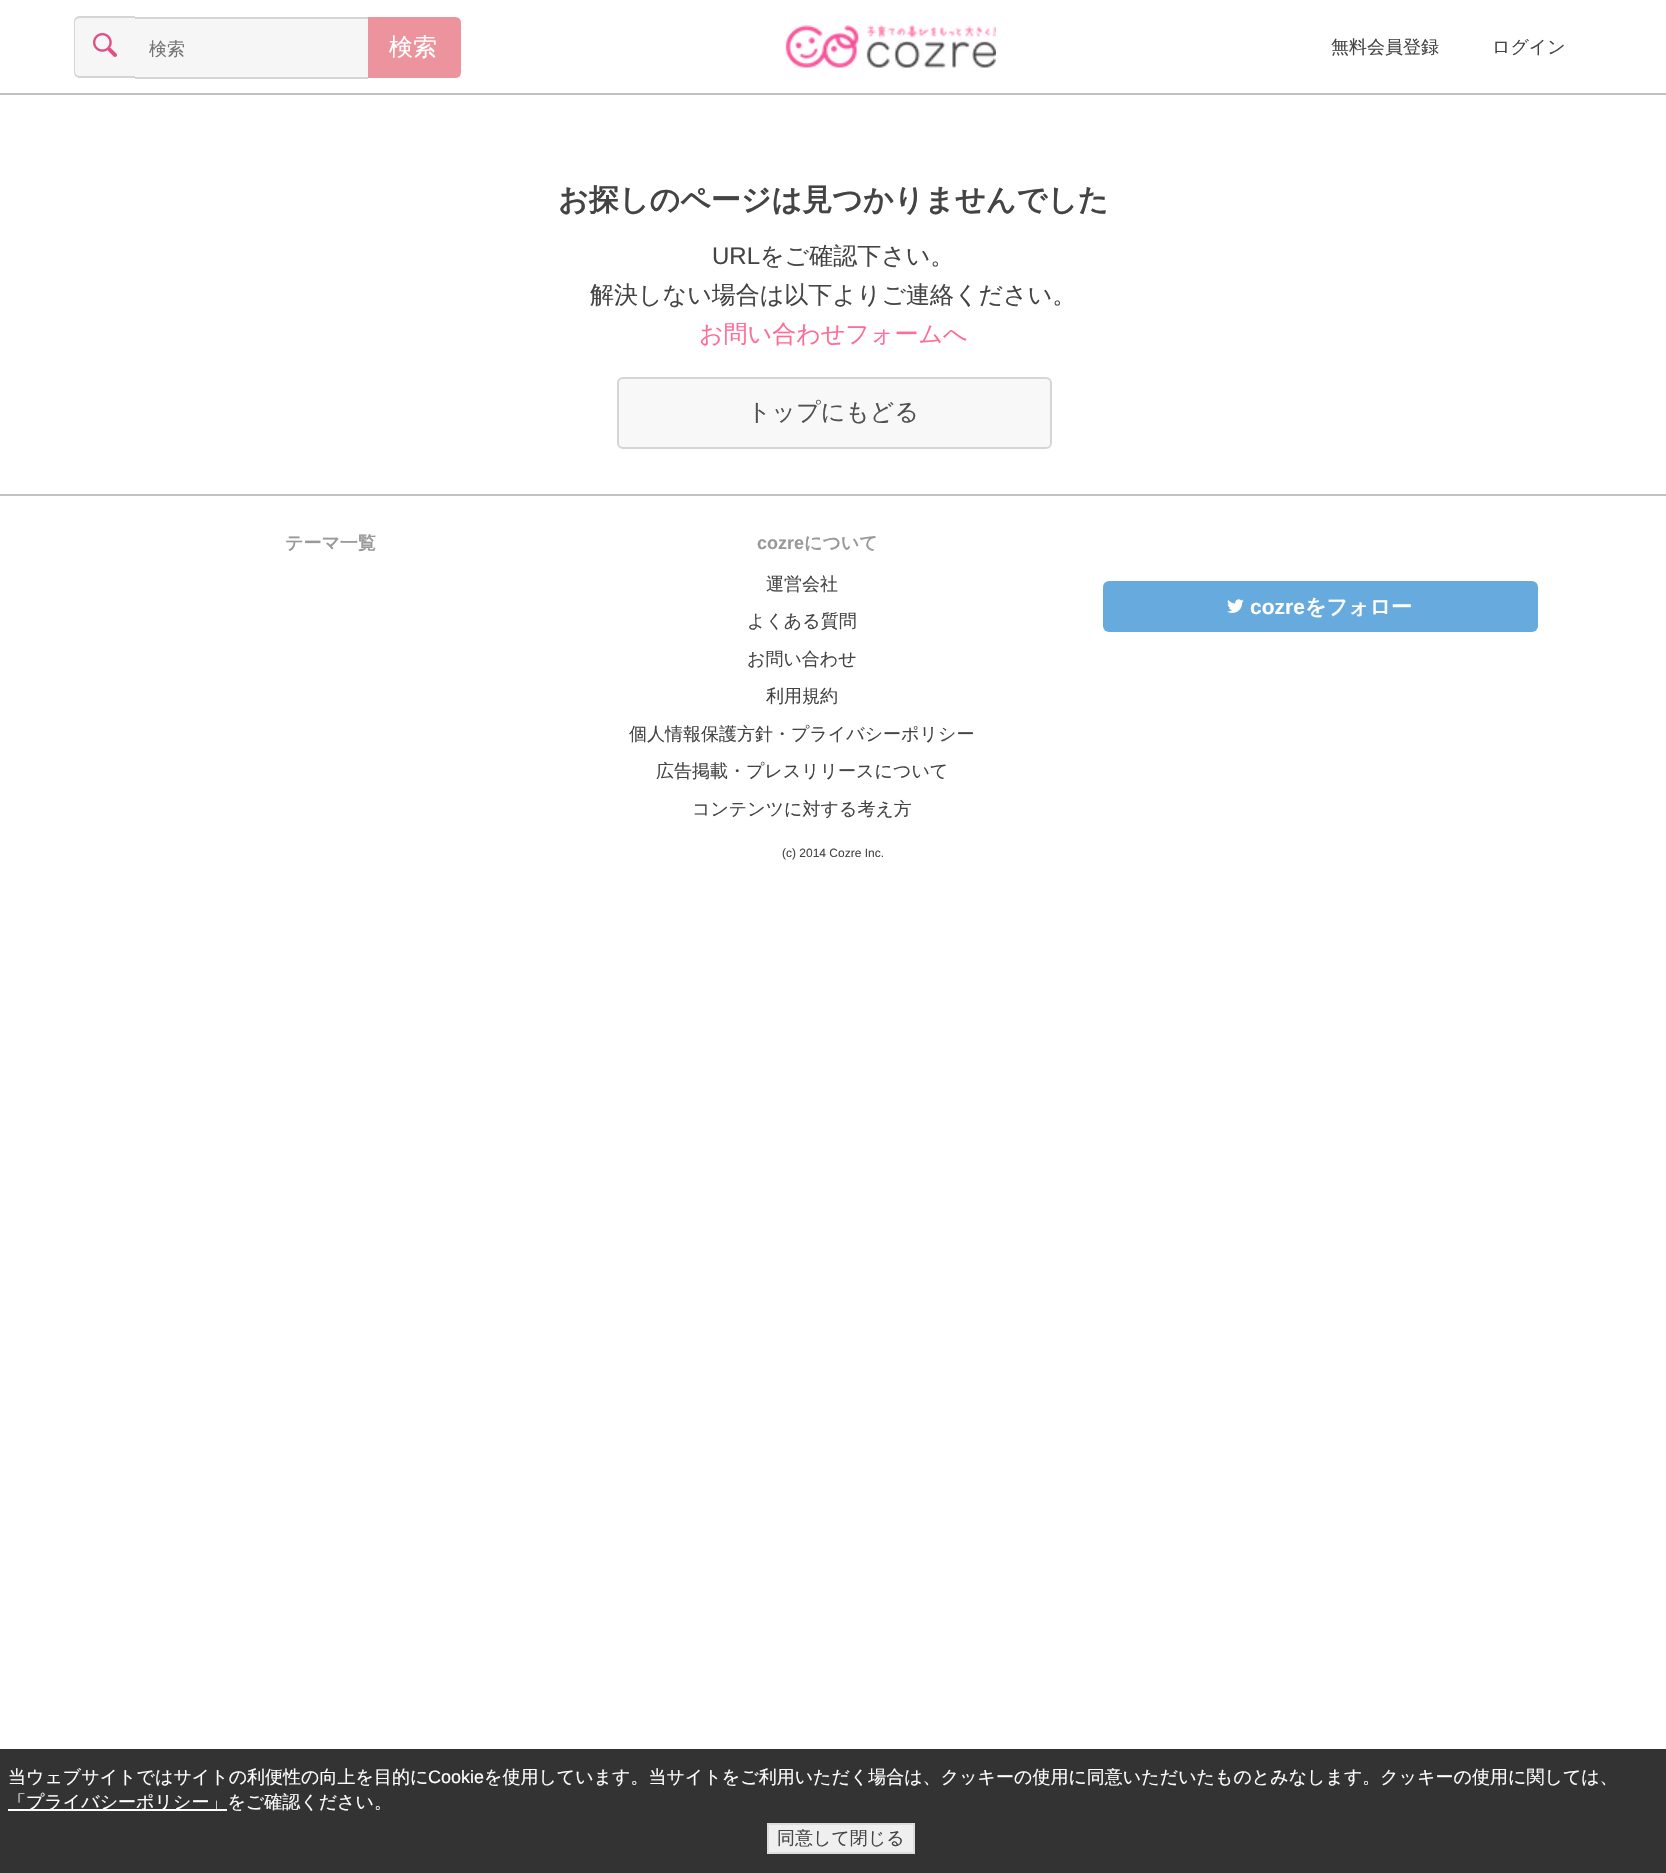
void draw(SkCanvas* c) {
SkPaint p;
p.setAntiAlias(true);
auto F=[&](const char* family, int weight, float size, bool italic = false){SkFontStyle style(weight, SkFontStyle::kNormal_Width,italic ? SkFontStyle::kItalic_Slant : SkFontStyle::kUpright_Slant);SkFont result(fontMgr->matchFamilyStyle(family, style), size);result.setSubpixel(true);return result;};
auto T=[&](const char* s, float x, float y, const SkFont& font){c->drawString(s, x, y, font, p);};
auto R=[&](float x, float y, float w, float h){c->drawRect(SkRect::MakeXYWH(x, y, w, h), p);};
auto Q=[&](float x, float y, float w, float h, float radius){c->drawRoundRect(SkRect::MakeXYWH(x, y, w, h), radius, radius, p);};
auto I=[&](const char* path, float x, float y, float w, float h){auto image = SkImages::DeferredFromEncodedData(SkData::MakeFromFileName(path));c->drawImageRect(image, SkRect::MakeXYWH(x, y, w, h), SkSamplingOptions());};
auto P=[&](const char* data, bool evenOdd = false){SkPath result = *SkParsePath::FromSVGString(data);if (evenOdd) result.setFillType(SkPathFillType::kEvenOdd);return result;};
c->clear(0xffffffff);
p.setColor(0xfff6f6f6);
c->drawPath(P("M80 17h55v61h-55c-3.5 0-6-2.5-6-6v-49c0-3.5 2.5-6 6-6z"),p);
p.setColor(0xffd5d5d5);
c->drawPath(P("M80 16h55v62h-55c-4 0-6-3-6-6v-50c0-3 2-6 6-6zm0 2h55v58h-55c-3 0-5-2-5-4v-50c0-2 2-4 5-4z",true),p);
I("1.png",93,33,24,24);
p.setColor(0xfff6f6f6);
R(135,19,233,58);
p.setColor(0xffd5d5d5);
R(135,17,233,2);
R(135,77,233,2);
auto f1 = F("WenQuanYi Zen Hei",500,18);
p.setColor(0xff757575);
T("検索",149,55,f1);
p.setColor(0xffec939e);
c->drawPath(P("M369 18h86c3 0 5 2 5 5v49c0 3-2 5-5 5h-86z"),p);
p.setStroke(true);
p.setStrokeWidth(2);
c->drawPath(P("M369 18h86c3 0 5 2 5 5v49c0 3-2 5-5 5h-86z"),p);
auto f2 = F("WenQuanYi Zen Hei",500,24);
p.setStroke(false);
p.setColor(0xffffffff);
T("検索",389,55,f2);
I("2.png",785,25,211,43);
p.setColor(0xff444444);
T("無料会員登録",1331,53,f1);
T("ログイン",1492,53,f1);
p.setColor(0xffc1c1c1);
R(0,93,1666,2);
R(0,494,1666,2);
auto f3 = F("WenQuanYi Zen Hei",700,30);
p.setColor(0xff444444);
T("お探しのページは見つかりませんでした",558,210,f3);
auto f4 = F("Liberation Sans",400,24);
T("URL",712,264,f4);
T("をご確認下さい。",760,264,f2);
T("解決しない場合は以下よりご連絡ください。",590,303,f2);
p.setColor(0xffff6c97);
T("お問い合わせフォームへ",699,342,f2);
p.setColor(0xfff8f8f8);
c->drawRoundRect(SkRect::MakeXYWH(618,378,433,70),5,5,p);
p.setStroke(true);
p.setColor(0xffd6d5d6);
c->drawRoundRect(SkRect::MakeXYWH(618,378,433,70),5,5,p);
p.setStroke(false);
p.setColor(0xff525151);
T("トップにもどる",747,420,f2);
auto f5 = F("WenQuanYi Zen Hei",700,18);
p.setColor(0xff999999);
T("テーマ一覧",285,549,f5);
auto f6 = F("Liberation Sans",700,18);
T("cozre",757,549,f6);
T("について",804,549,f5);
p.setColor(0xff444444);
T("運営会社",766,590,f1);
T("よくある質問",747,627,f1);
T("お問い合わせ",747,665,f1);
T("利用規約",766,702,f1);
T("個人情報保護方針・プライバシーポリシー",629,740,f1);
T("広告掲載・プレスリリースについて",656,777,f1);
T("コンテンツに対する考え方",692,815,f1);
p.setColor(0xff67aadd);
Q(1103,581,435,51,6);
I("3.png",1227,599,17,14);
auto f7 = F("Liberation Sans",700,21);
p.setColor(0xffffffff);
T("cozre",1250,614,f7);
auto f8 = F("WenQuanYi Zen Hei",700,21);
T("をフォロー",1305,614,f8);
auto f9 = F("Liberation Sans",400,12);
p.setColor(0xff444444);
T("(c) 2014 Cozre Inc.",782,857,f9);
p.setColor(0xff333333);
R(0,1749,1666,124);
p.setColor(0xffffffff);
T("当ウェブサイトではサイトの利便性の向上を目的に",8,1783,f1);
auto f10 = F("Liberation Sans",400,18);
T("Cookie",428,1783,f10);
T("を使用しています。当サイトをご利用いただく場合は、クッキーの使用に同意いただいたものとみなします。クッキーの使用に関しては、",484,1783,f1);
p.setColor(0xfffefefe);
R(8,1809,219,2);
p.setColor(0xffffffff);
T("「プライバシーポリシー」をご確認ください。",8,1808,f1);
p.setColor(0xffefefef);
c->drawRect(SkRect::MakeXYWH(768,1824,146,29),p);
p.setStroke(true);
p.setColor(0xffdddddd);
c->drawRect(SkRect::MakeXYWH(768,1824,146,29),p);
p.setStroke(false);
p.setColor(0xff444444);
T("同意して閉じる",777,1844,f1);
}
